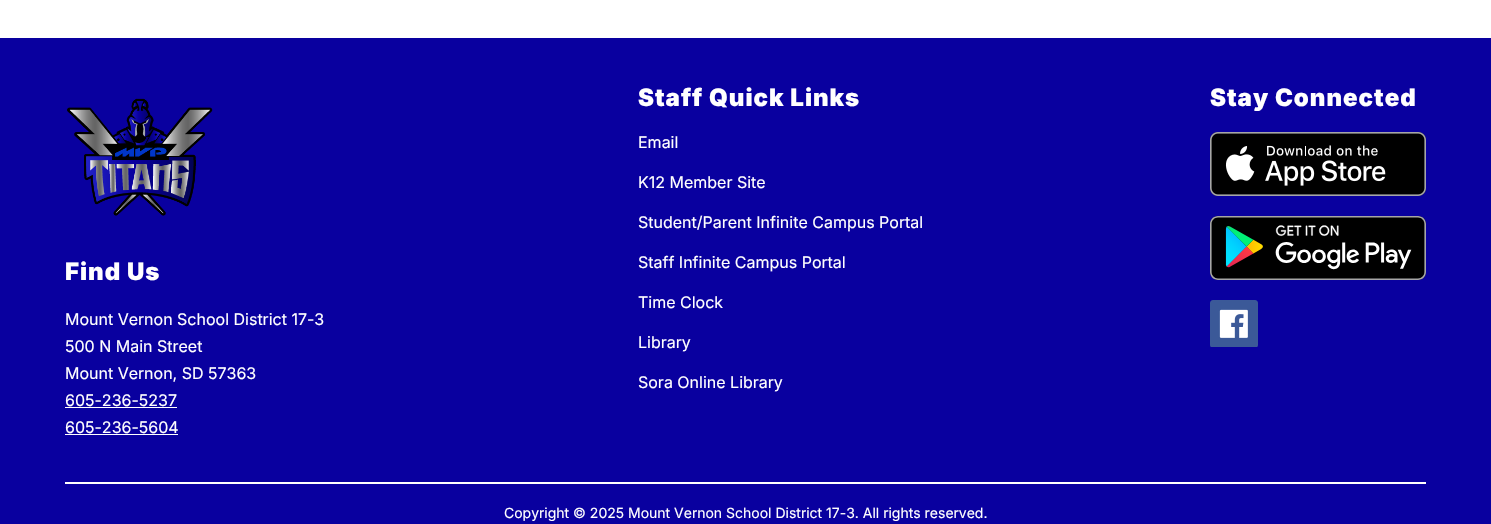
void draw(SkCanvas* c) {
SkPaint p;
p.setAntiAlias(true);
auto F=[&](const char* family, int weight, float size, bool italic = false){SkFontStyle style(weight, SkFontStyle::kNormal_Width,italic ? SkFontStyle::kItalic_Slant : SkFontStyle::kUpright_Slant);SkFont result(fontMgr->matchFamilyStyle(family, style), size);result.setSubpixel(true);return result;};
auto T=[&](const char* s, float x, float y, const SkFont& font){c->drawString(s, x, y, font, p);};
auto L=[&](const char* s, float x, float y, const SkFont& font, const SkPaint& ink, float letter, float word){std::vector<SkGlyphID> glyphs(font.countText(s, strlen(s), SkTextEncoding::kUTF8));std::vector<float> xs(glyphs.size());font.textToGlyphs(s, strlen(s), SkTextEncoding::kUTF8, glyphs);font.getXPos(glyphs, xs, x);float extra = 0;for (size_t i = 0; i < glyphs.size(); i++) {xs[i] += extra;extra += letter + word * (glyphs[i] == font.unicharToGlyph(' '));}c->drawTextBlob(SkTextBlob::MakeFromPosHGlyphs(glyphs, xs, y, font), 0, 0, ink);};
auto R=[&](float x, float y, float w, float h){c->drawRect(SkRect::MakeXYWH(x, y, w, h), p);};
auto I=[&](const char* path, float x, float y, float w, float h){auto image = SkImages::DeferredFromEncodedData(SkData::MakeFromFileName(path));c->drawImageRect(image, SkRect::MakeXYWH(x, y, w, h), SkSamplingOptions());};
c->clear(0xffffffff);
p.setColor(0xff09009f);
R(0,38,1491,486);
auto f1 = F("Inter",900,24);
p.setColor(0xffffffff);
L("Staff Quick Links",638,106,f1,p,1,0);
auto f2 = F("Inter",400,16);
T("Email",638,148,f2);
T("K12 Member Site",638,188,f2);
T("Student/Parent Infinite Campus Portal",638,228,f2);
T("Staff Infinite Campus Portal",638,268,f2);
T("Time Clock",638,308,f2);
T("Library",638,348,f2);
T("Sora Online Library",638,388,f2);
L("Stay Connected",1210,106,f1,p,1,0);
I("1.png",1210,132,216,64);
I("2.png",1210,216,216,64);
I("3.png",1210,300,48,47);
I("4.png",67,98,146,118);
L("Find Us",65,280,f1,p,1,0);
T("Mount Vernon School District 17-3",65,325,f2);
T("500 N Main Street",65,352,f2);
T("Mount Vernon, SD 57363",65,379,f2);
T("605-236-5237",65,406,f2);
R(65,407,112,1);
T("605-236-5604",65,433,f2);
R(65,434,113,1);
R(65,482,1361,2);
auto f3 = F("Inter",400,14);
T("Copyright © 2025 Mount Vernon School District 17-3. All rights reserved.",504,518,f3);
}
